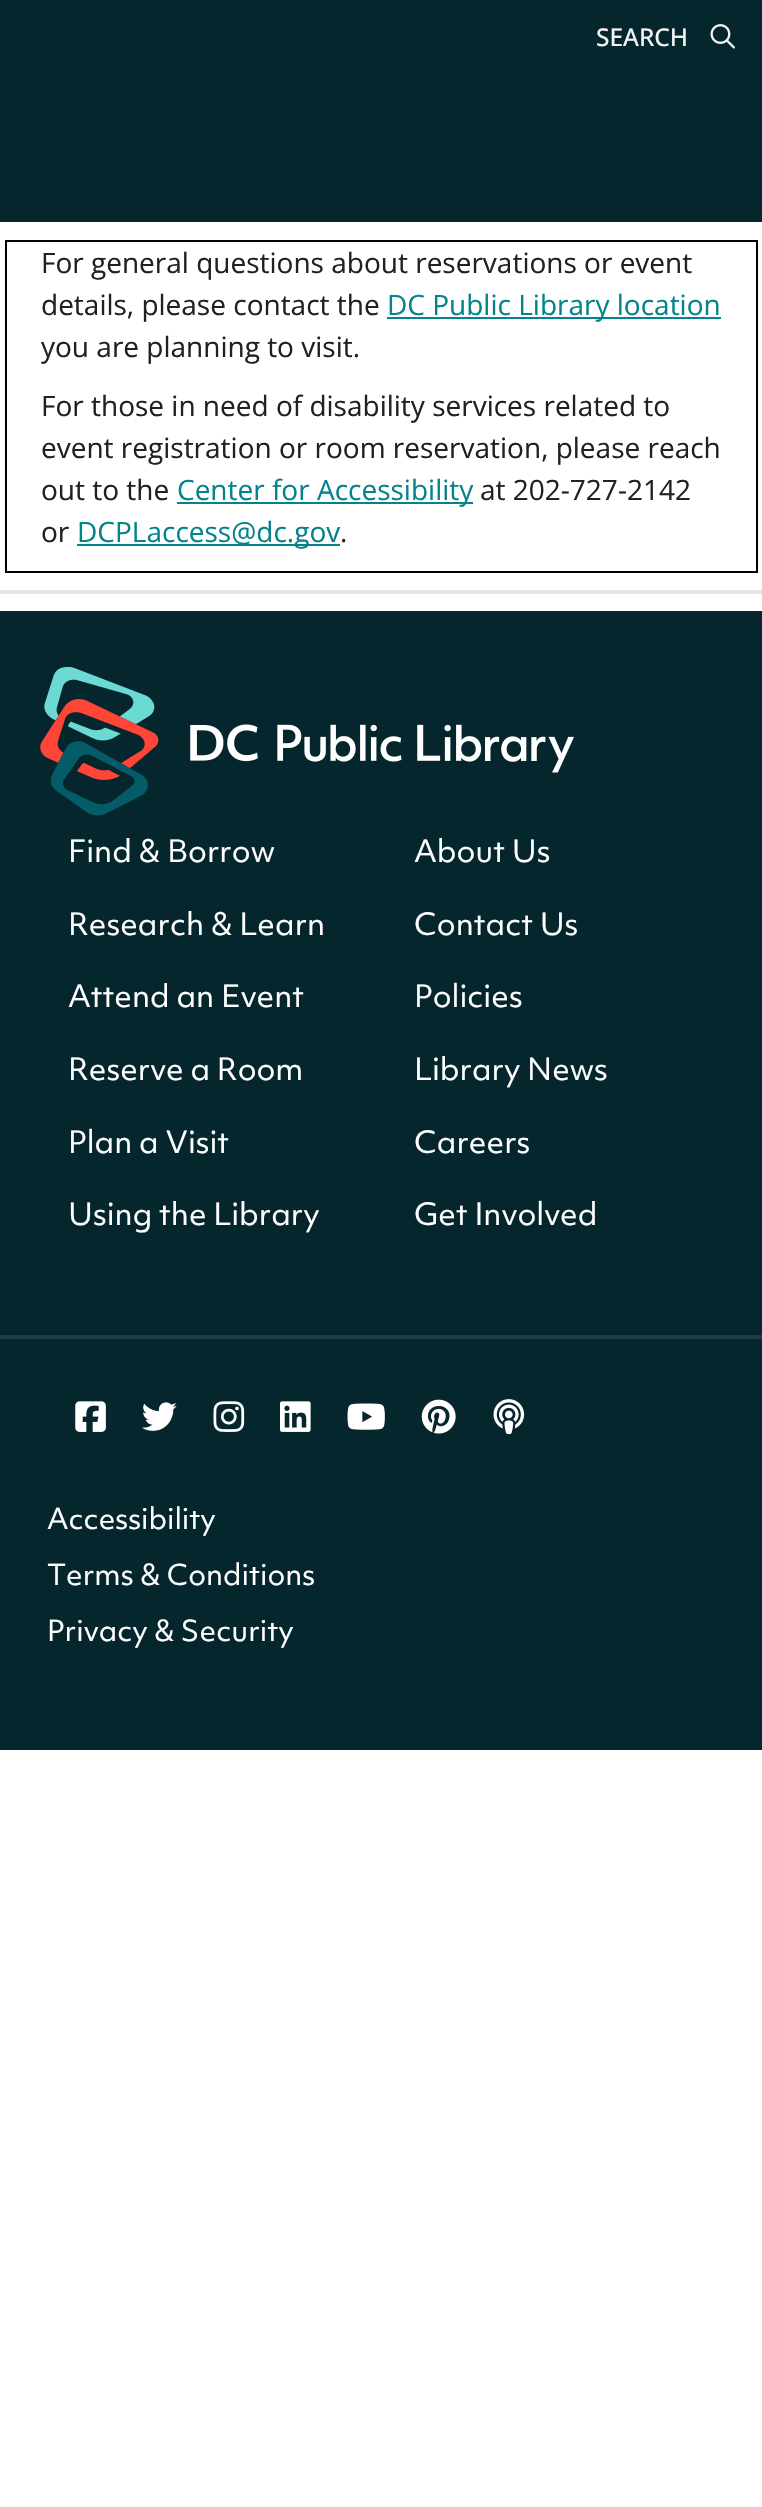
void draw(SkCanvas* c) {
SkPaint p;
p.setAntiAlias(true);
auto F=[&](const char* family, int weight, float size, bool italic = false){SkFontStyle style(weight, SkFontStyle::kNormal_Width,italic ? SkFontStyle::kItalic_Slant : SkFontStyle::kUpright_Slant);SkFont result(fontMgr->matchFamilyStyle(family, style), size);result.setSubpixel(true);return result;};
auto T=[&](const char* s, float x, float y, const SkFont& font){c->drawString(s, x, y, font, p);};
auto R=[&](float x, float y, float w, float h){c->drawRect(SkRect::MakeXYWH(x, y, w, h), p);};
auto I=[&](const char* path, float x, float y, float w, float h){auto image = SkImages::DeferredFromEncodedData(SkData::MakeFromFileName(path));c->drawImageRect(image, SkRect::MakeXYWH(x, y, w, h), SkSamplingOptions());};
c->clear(0xffffffff);
p.setColor(0xffe1e5e5);
R(0,590,762,4);
p.setColor(0xff06262d);
R(0,0,762,222);
auto f1 = F("Open Sans",500,24.5);
p.setColor(0xfff2f4f4);
T("SEARCH",596,46,f1);
I("1.png",710,24,25,25);
p.setColor(0xff000000);
R(5,240,753,2);
R(756,240,2,332);
R(5,571,753,2);
R(5,240,2,332);
auto f2 = F("Open Sans",400,28);
p.setColor(0xff212121);
T("For general questions about reservations or event",41,273,f2);
T("details, please contact the",41,315,f2);
p.setColor(0xff03838a);
R(387,317,334,2);
T("DC Public Library location",387,315,f2);
p.setColor(0xff212121);
T("you are planning to visit.",41,357,f2);
T("For those in need of disability services related to",41,416,f2);
T("event registration or room reservation, please reach",41,458,f2);
T("out to the",41,500,f2);
p.setColor(0xff03838a);
R(177,502,296,2);
T("Center for Accessibility",177,500,f2);
p.setColor(0xff212121);
T("at 202-727-2142",480,500,f2);
T("or",41,542,f2);
p.setColor(0xff03838a);
R(77,544,263,2);
T("DCPLaccess@dc.gov",77,542,f2);
p.setColor(0xff212121);
T(".",340,542,f2);
p.setColor(0xff06262d);
R(0,611,762,1139);
I("2.png",40,667,534,149);
auto f3 = F("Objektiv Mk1",400,29.75);
p.setColor(0xffffffff);
T("Find & Borrow",68,862,f3);
T("About Us",414,862,f3);
T("Research & Learn",68,935,f3);
T("Contact Us",414,935,f3);
T("Attend an Event",68,1007,f3);
T("Policies",414,1007,f3);
T("Reserve a Room",68,1080,f3);
T("Library News",414,1080,f3);
T("Plan a Visit",68,1153,f3);
T("Careers",414,1153,f3);
T("Using the Library",68,1225,f3);
T("Get Involved",414,1225,f3);
p.setColor(0xff1e3b41);
R(0,1335,762,4);
I("3.png",75,1401,31,31);
I("4.png",142,1402,35,29);
I("5.png",213,1401,32,31);
I("6.png",280,1401,31,31);
I("7.png",347,1403,38,27);
I("8.png",421,1399,35,35);
I("9.png",493,1399,32,36);
auto f4 = F("Objektiv Mk1",400,28);
p.setColor(0xffffffff);
T("Accessibility",47,1529,f4);
T("Terms & Conditions",47,1585,f4);
T("Privacy & Security",47,1641,f4);
}
